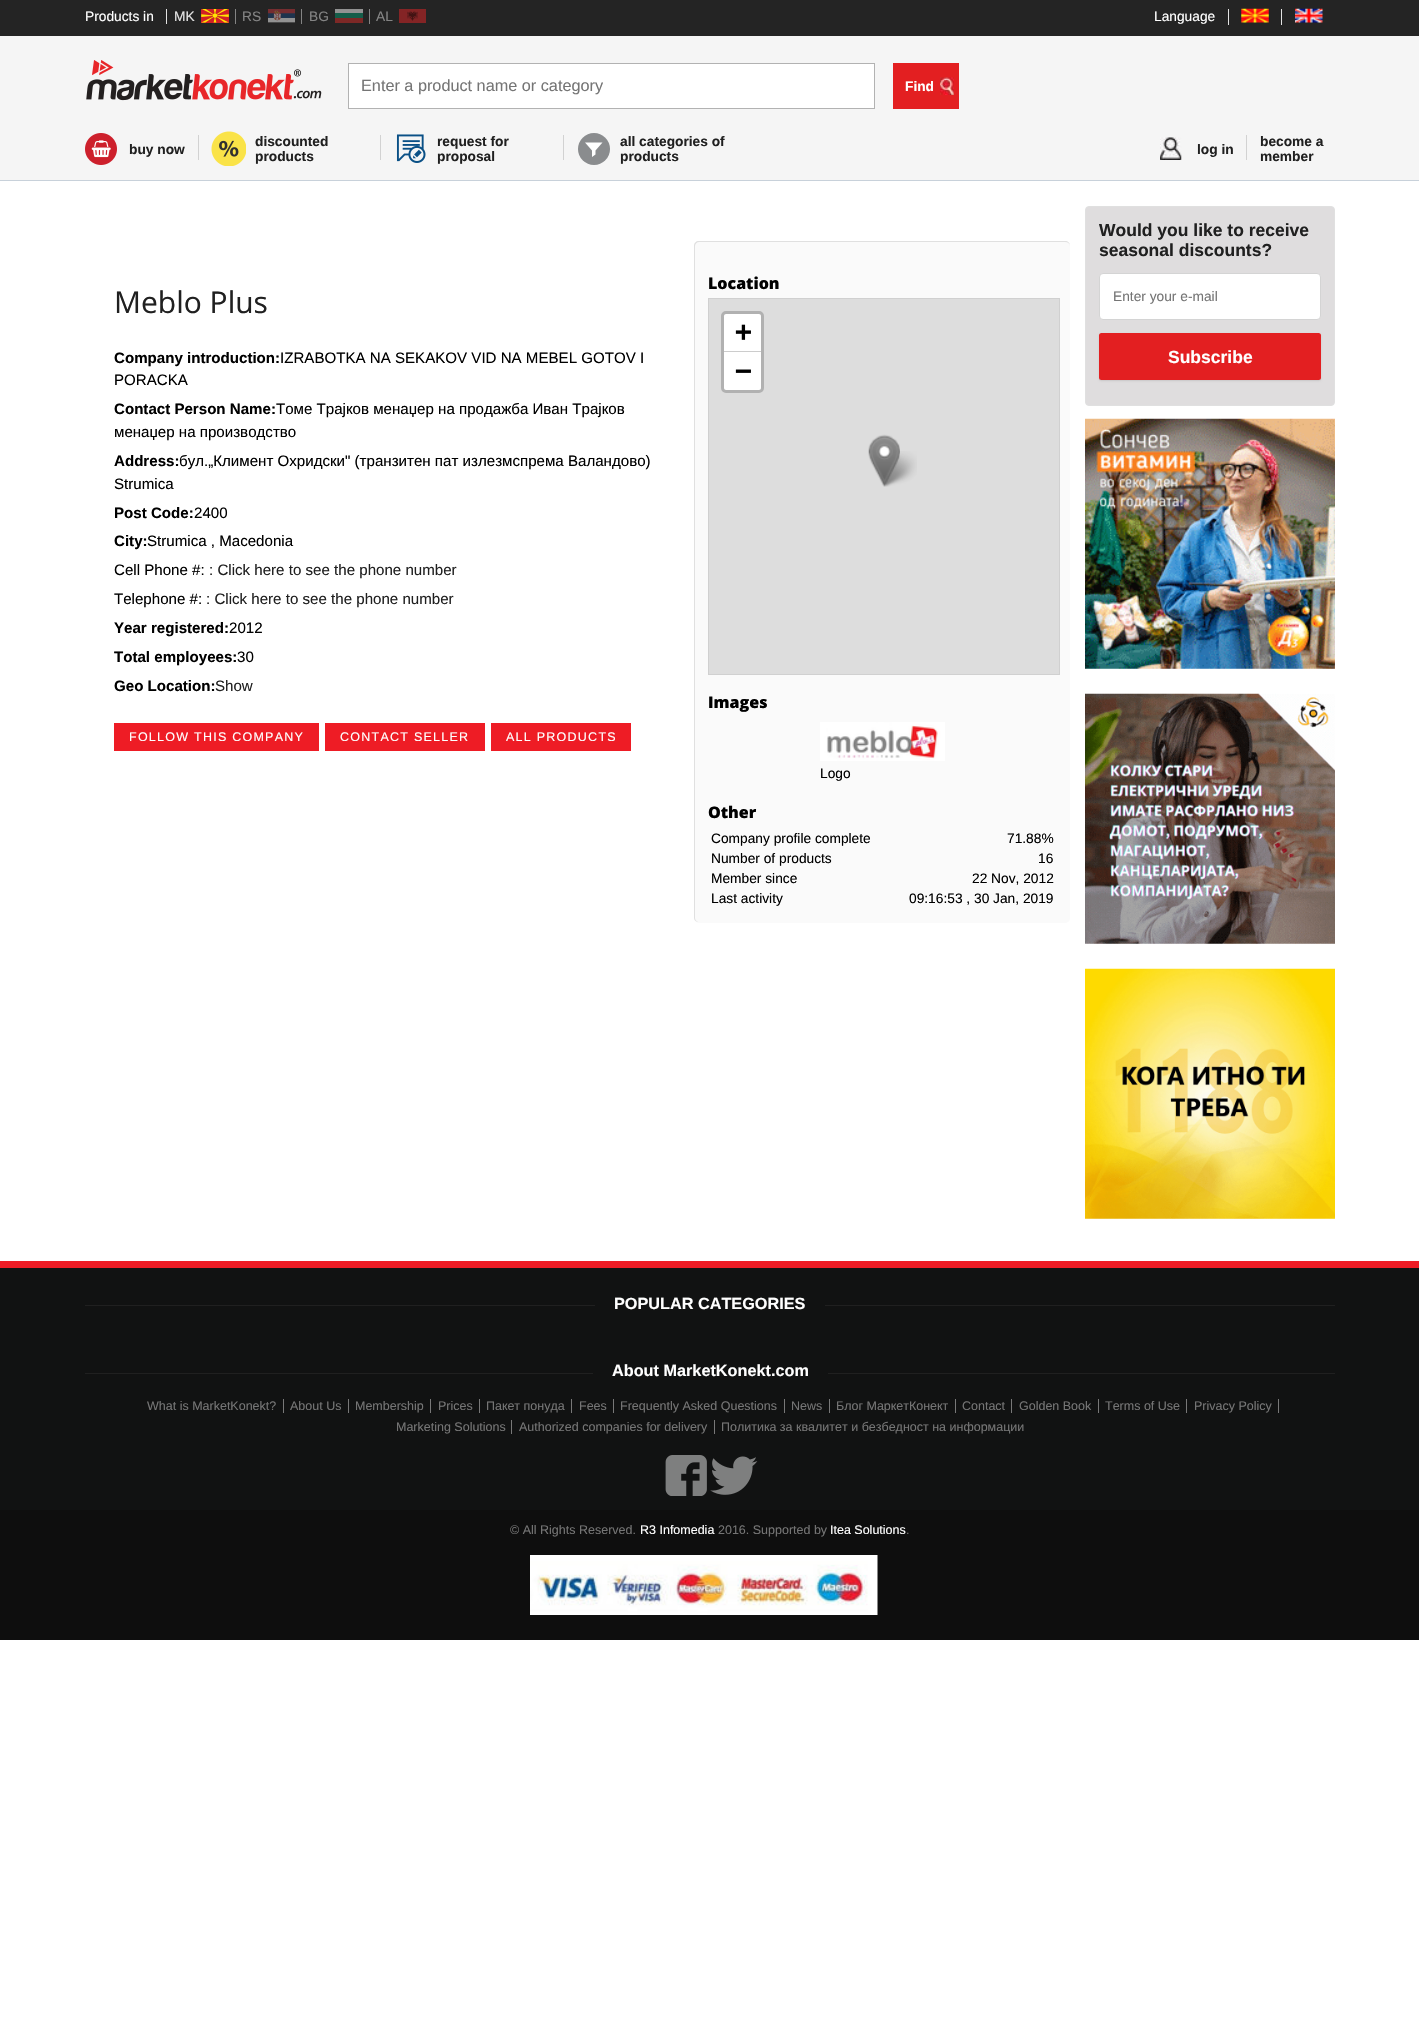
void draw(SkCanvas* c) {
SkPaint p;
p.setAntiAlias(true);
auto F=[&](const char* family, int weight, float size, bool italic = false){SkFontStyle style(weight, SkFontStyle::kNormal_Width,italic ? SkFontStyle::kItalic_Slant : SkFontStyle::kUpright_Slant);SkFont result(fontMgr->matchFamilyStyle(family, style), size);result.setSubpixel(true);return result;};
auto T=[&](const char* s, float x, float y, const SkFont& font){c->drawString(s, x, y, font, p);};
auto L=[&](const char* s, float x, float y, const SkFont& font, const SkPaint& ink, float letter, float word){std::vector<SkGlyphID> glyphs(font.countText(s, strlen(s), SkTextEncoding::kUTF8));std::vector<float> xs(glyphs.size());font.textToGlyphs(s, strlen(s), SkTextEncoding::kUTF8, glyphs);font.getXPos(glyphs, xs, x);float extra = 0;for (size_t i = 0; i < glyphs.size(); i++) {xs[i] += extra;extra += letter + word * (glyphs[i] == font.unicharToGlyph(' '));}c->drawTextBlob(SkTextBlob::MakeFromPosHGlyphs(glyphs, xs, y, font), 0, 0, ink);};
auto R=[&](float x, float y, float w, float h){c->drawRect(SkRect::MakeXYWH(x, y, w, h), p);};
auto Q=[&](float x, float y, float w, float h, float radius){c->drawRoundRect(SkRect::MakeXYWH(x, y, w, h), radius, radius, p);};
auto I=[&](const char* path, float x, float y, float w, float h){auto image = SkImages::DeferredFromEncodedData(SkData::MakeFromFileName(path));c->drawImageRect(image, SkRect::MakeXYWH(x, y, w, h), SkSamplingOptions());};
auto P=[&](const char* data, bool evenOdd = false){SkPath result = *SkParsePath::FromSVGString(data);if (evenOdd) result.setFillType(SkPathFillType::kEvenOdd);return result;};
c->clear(0xffffffff);
p.setColor(0xff242424);
R(0,0,1419,36);
auto f1 = F("Liberation Sans",400,13.75);
p.setColor(0xffffffff);
T("Products in",85,21,f1);
I("1.png",201,9,28,14);
p.setColor(0xffe3e3e3);
R(166,9,1,15);
T("MK",174,21,f1);
I("2.png",268,9,27,14);
p.setColor(0xff848484);
R(235,9,1,15);
T("RS",242,21,f1);
p.setColor(0xff929292);
R(335,9,28,4);
p.setColor(0xff145d49);
R(335,13,28,5);
p.setColor(0xff7d2826);
R(335,18,28,5);
p.setColor(0xff848484);
R(301,9,1,15);
T("BG",309,21,f1);
I("3.png",399,9,27,14);
R(369,9,1,15);
T("AL",376,21,f1);
p.setColor(0xffffffff);
T("Language",1154,21,f1);
p.setColor(0xffe3e3e3);
R(1228,9,1,16);
I("4.png",1241,8,28,15);
R(1281,9,1,16);
I("5.png",1295,8,28,15);
p.setColor(0xfff5f5f5);
R(0,36,1419,144);
p.setColor(0xffc8d1da);
R(0,180,1419,1);
I("6.png",86,60,236,41);
p.setColor(0xffffffff);
c->drawRect(SkRect::MakeXYWH(348.5,63.5,526,45),p);
p.setStroke(true);
p.setStrokeWidth(1);
p.setColor(0xffb2b2b2);
c->drawRect(SkRect::MakeXYWH(348.5,63.5,526,45),p);
auto f2 = F("Liberation Sans",400,16.25);
p.setStroke(false);
p.setColor(0xff757575);
T("Enter a product name or category",361,91,f2);
p.setColor(0xffe31f21);
R(893,63,66,46);
I("7.png",940,77,14,18);
auto f3 = F("Liberation Sans",700,13.75);
p.setColor(0xffffffff);
T("Find",905,91,f3);
I("8.png",85,133,32,32);
p.setColor(0xff202020);
T("buy now",129,154,f3);
p.setColor(0xffd2d2d2);
R(198,135,1,25);
I("9.png",211,131,35,35);
p.setColor(0xff202020);
T("discounted",255,146,f3);
T("products",255,161,f3);
p.setColor(0xffd2d2d2);
R(380,135,1,25);
I("10.png",396,134,30,29);
p.setColor(0xff202020);
T("request for",437,146,f3);
T("proposal",437,161,f3);
p.setColor(0xffd2d2d2);
R(563,135,1,25);
p.setColor(0xff8a8c8e);
c->drawCircle(594,149,16,p);
p.setColor(0xffffffff);
c->drawPath(P("M592 157l3.5-2.5v-4l7-8h-17.5l7 8z"),p);
p.setColor(0xff202020);
T("all categories of",620,146,f3);
T("products",620,161,f3);
I("11.png",1160,137,22,23);
T("log in",1197,154,f3);
p.setColor(0xffd2d2d2);
R(1246,135,1,25);
p.setColor(0xff202020);
T("become a",1260,146,f3);
T("member",1260,161,f3);
auto f4 = F("Open Sans",400,30);
T("Meblo Plus",114,313,f4);
auto f5 = F("Liberation Sans",700,15.1);
p.setColor(0xff000000);
T("Company introduction:",114,363,f5);
auto f6 = F("Liberation Sans",400,15.1);
T("IZRABOTKA NA SEKAKOV VID NA MEBEL GOTOV I",280,363,f6);
T("PORACKA",114,385,f6);
T("Contact Person Name:",114,414,f5);
T("Томе Трајков менаџер на продажба Иван Трајков",276,414,f6);
T("менаџер на производство",114,437,f6);
T("Address:",114,466,f5);
T("бул.„Климент Охридски\" (транзитен пат излезмспрема Валандово)",179,466,f6);
T("Strumica",114,489,f6);
T("Post Code:",114,518,f5);
T("2400",194,518,f6);
T("City:",114,546,f5);
T("Strumica , Macedonia",147,546,f6);
T("Cell Phone #:",114,575,f6);
p.setColor(0xff202020);
T(": Click here to see the phone number",209,575,f6);
p.setColor(0xff000000);
T("Telephone #:",114,604,f6);
p.setColor(0xff202020);
T(": Click here to see the phone number",206,604,f6);
p.setColor(0xff000000);
T("Year registered:",114,633,f5);
T("2012",229,633,f6);
T("Total employees:",114,662,f5);
T("30",237,662,f6);
T("Geo Location:",114,691,f5);
p.setColor(0xff202020);
T("Show",215,691,f6);
p.setColor(0xffee1c25);
R(114,723,205,28);
auto f7 = F("Liberation Sans",400,12.5);
p.setColor(0xffffffff);
L("FOLLOW THIS COMPANY",129,741,f7,p,1.25,0);
p.setColor(0xffee1c25);
R(325,723,160,28);
p.setColor(0xffffffff);
L("CONTACT SELLER",340,741,f7,p,1.25,0);
p.setColor(0xffee1c25);
R(491,723,140,28);
p.setColor(0xffffffff);
L("ALL PRODUCTS",506,741,f7,p,1.25,0);
p.setColor(0xfffafafa);
Q(694,241,376,682,5);
p.setColor(0xffe0e0e0);
c->drawPath(P("M699 241h366c3 0 5 2 5 5v672c0 2-2 4-5 4h-366c-3 0-5-2-5-4v-672c0-3 2-5 5-5zm0 1h366c3 0 5 2 5 4v672c0 2-2 4-5 4h-366c-2 0-4-2-4-4v-672c0-2 2-4 4-4z",true),p);
auto f8 = F("Open Sans",800,16);
p.setColor(0xff000000);
T("Location",708,289,f8);
p.setColor(0xffdddddd);
c->drawRect(SkRect::MakeXYWH(708.5,298.5,351,376),p);
p.setStroke(true);
p.setColor(0xffd0d0d0);
c->drawRect(SkRect::MakeXYWH(708.5,298.5,351,376),p);
p.setStrokeWidth(3);
p.setColor(0xffb1b1b1);
c->drawRoundRect(SkRect::MakeXYWH(722.5,312.5,40,79),3.5,3.5,p);
p.setStroke(false);
p.setColor(0xffffffff);
c->drawPath(P("M726.5 314h32c1.5 0 2.5 1 2.5 2.5v36.5h-37v-36.5c0-1.5 1-2.5 2.5-2.5z"),p);
p.setColor(0xffcccccc);
R(724,351,37,1);
auto f9 = F("DejaVu Sans Mono",700,28);
p.setColor(0xff000000);
T("+",735,341,f9);
p.setColor(0xffffffff);
c->drawPath(P("M724 353h37v34.5c0 1.5-1 2.5-2.5 2.5h-32c-1.5 0-2.5-1-2.5-2.5z"),p);
p.setColor(0xff000000);
T("−",735,380,f9);
I("13.png",880,451,37,36);
I("12.png",868,434,32,53);
T("Images",708,708,f8);
I("14.png",820,722,125,39);
T("Logo",820,778,f1);
T("Other",708,818,f8);
T("Company profile complete",711,843,f1);
T("71.88%",1007,843,f1);
T("Number of products",711,863,f1);
T("16",1038,863,f1);
T("Member since",711,883,f1);
T("22 Nov, 2012",972,883,f1);
T("Last activity",711,903,f1);
T("09:16:53 , 30 Jan, 2019",909,903,f1);
p.setColor(0xffdfddde);
c->drawRoundRect(SkRect::MakeXYWH(1085.5,206.5,249,199),3.5,3.5,p);
p.setStroke(true);
p.setStrokeWidth(1);
p.setColor(0xffe0e0e0);
c->drawRoundRect(SkRect::MakeXYWH(1085.5,206.5,249,199),3.5,3.5,p);
auto f10 = F("Liberation Sans",700,17.5);
p.setStroke(false);
p.setColor(0xff202020);
T("Would you like to receive",1099,236,f10);
T("seasonal discounts?",1099,256,f10);
p.setColor(0xffffffff);
c->drawRoundRect(SkRect::MakeXYWH(1099.5,273.5,221,46),3.5,3.5,p);
p.setStroke(true);
p.setColor(0xffd4d4d4);
c->drawRoundRect(SkRect::MakeXYWH(1099.5,273.5,221,46),3.5,3.5,p);
p.setStroke(false);
p.setColor(0xff757575);
T("Enter your e-mail",1113,301,f1);
p.setColor(0x1a000000);
p.setMaskFilter(SkMaskFilter::MakeBlur(kNormal_SkBlurStyle, 1));
c->drawRoundRect(SkRect::MakeXYWH(1099,334,222,47),2.5,2.5,p);
p.setMaskFilter(nullptr);
p.setColor(0xffe31f21);
Q(1099,333,222,47,2.5);
p.setColor(0xffffffff);
T("Subscribe",1168,363,f10);
I("15.png",1085,418,250,251);
I("16.png",1085,693,250,251);
I("17.png",1085,968,250,251);
p.setColor(0xff111212);
R(0,1268,1419,242);
p.setColor(0xffee1c25);
R(0,1261,1419,7);
p.setColor(0xff202020);
R(85,1305,1250,1);
p.setColor(0xff111212);
R(595,1305,230,1);
auto f11 = F("Liberation Sans",700,16.25);
p.setColor(0xffffffff);
T("POPULAR CATEGORIES",614,1309,f11);
p.setColor(0xff202020);
R(85,1373,1250,1);
p.setColor(0xff111212);
R(593,1373,235,1);
p.setColor(0xffffffff);
T("About MarketKonekt.com",612,1376,f11);
p.setColor(0xff787878);
R(283,1399,1,14);
p.setColor(0xff757575);
T("What is MarketKonekt?",147,1410,f7);
p.setColor(0xff787878);
R(348,1399,1,14);
p.setColor(0xff757575);
T("About Us",290,1410,f7);
p.setColor(0xff787878);
R(430,1399,1,14);
p.setColor(0xff757575);
T("Membership",355,1410,f7);
p.setColor(0xff787878);
R(479,1399,1,14);
p.setColor(0xff757575);
T("Prices",438,1410,f7);
p.setColor(0xff787878);
R(571,1399,1,14);
p.setColor(0xff757575);
T("Пакет понуда",486,1410,f7);
p.setColor(0xff787878);
R(613,1399,1,14);
p.setColor(0xff757575);
T("Fees",579,1410,f7);
p.setColor(0xff787878);
R(784,1399,1,14);
p.setColor(0xff757575);
T("Frequently Asked Questions",620,1410,f7);
p.setColor(0xff787878);
R(829,1399,1,14);
p.setColor(0xff757575);
T("News",791,1410,f7);
p.setColor(0xff787878);
R(955,1399,1,14);
p.setColor(0xff757575);
T("Блог МаркетКонект",836,1410,f7);
p.setColor(0xff787878);
R(1011,1399,1,14);
p.setColor(0xff757575);
T("Contact",962,1410,f7);
p.setColor(0xff787878);
R(1098,1399,1,14);
p.setColor(0xff757575);
T("Golden Book",1019,1410,f7);
p.setColor(0xff787878);
R(1186,1399,1,14);
p.setColor(0xff757575);
T("Terms of Use",1105,1410,f7);
p.setColor(0xff787878);
R(1278,1399,1,14);
p.setColor(0xff757575);
T("Privacy Policy",1194,1410,f7);
p.setColor(0xff787878);
R(511,1420,1,14);
p.setColor(0xff757575);
T("Marketing Solutions",396,1431,f7);
p.setColor(0xff787878);
R(714,1420,1,14);
p.setColor(0xff757575);
T("Authorized companies for delivery",519,1431,f7);
T("Политика за квалитет и безбедност на информации",721,1431,f7);
I("18.png",665,1455,42,41);
I("19.png",710,1456,48,39);
p.setColor(0xff0e0e0e);
R(0,1510,1419,130);
p.setColor(0xff757575);
T("© All Rights Reserved.",510,1534,f7);
p.setColor(0xffffffff);
T("R3 Infomedia",640,1534,f7);
p.setColor(0xff757575);
T("2016. Supported by",718,1534,f7);
p.setColor(0xffffffff);
T("Itea Solutions",830,1534,f7);
p.setColor(0xff757575);
T(".",906,1534,f7);
I("20.png",530,1555,348,60);
}
